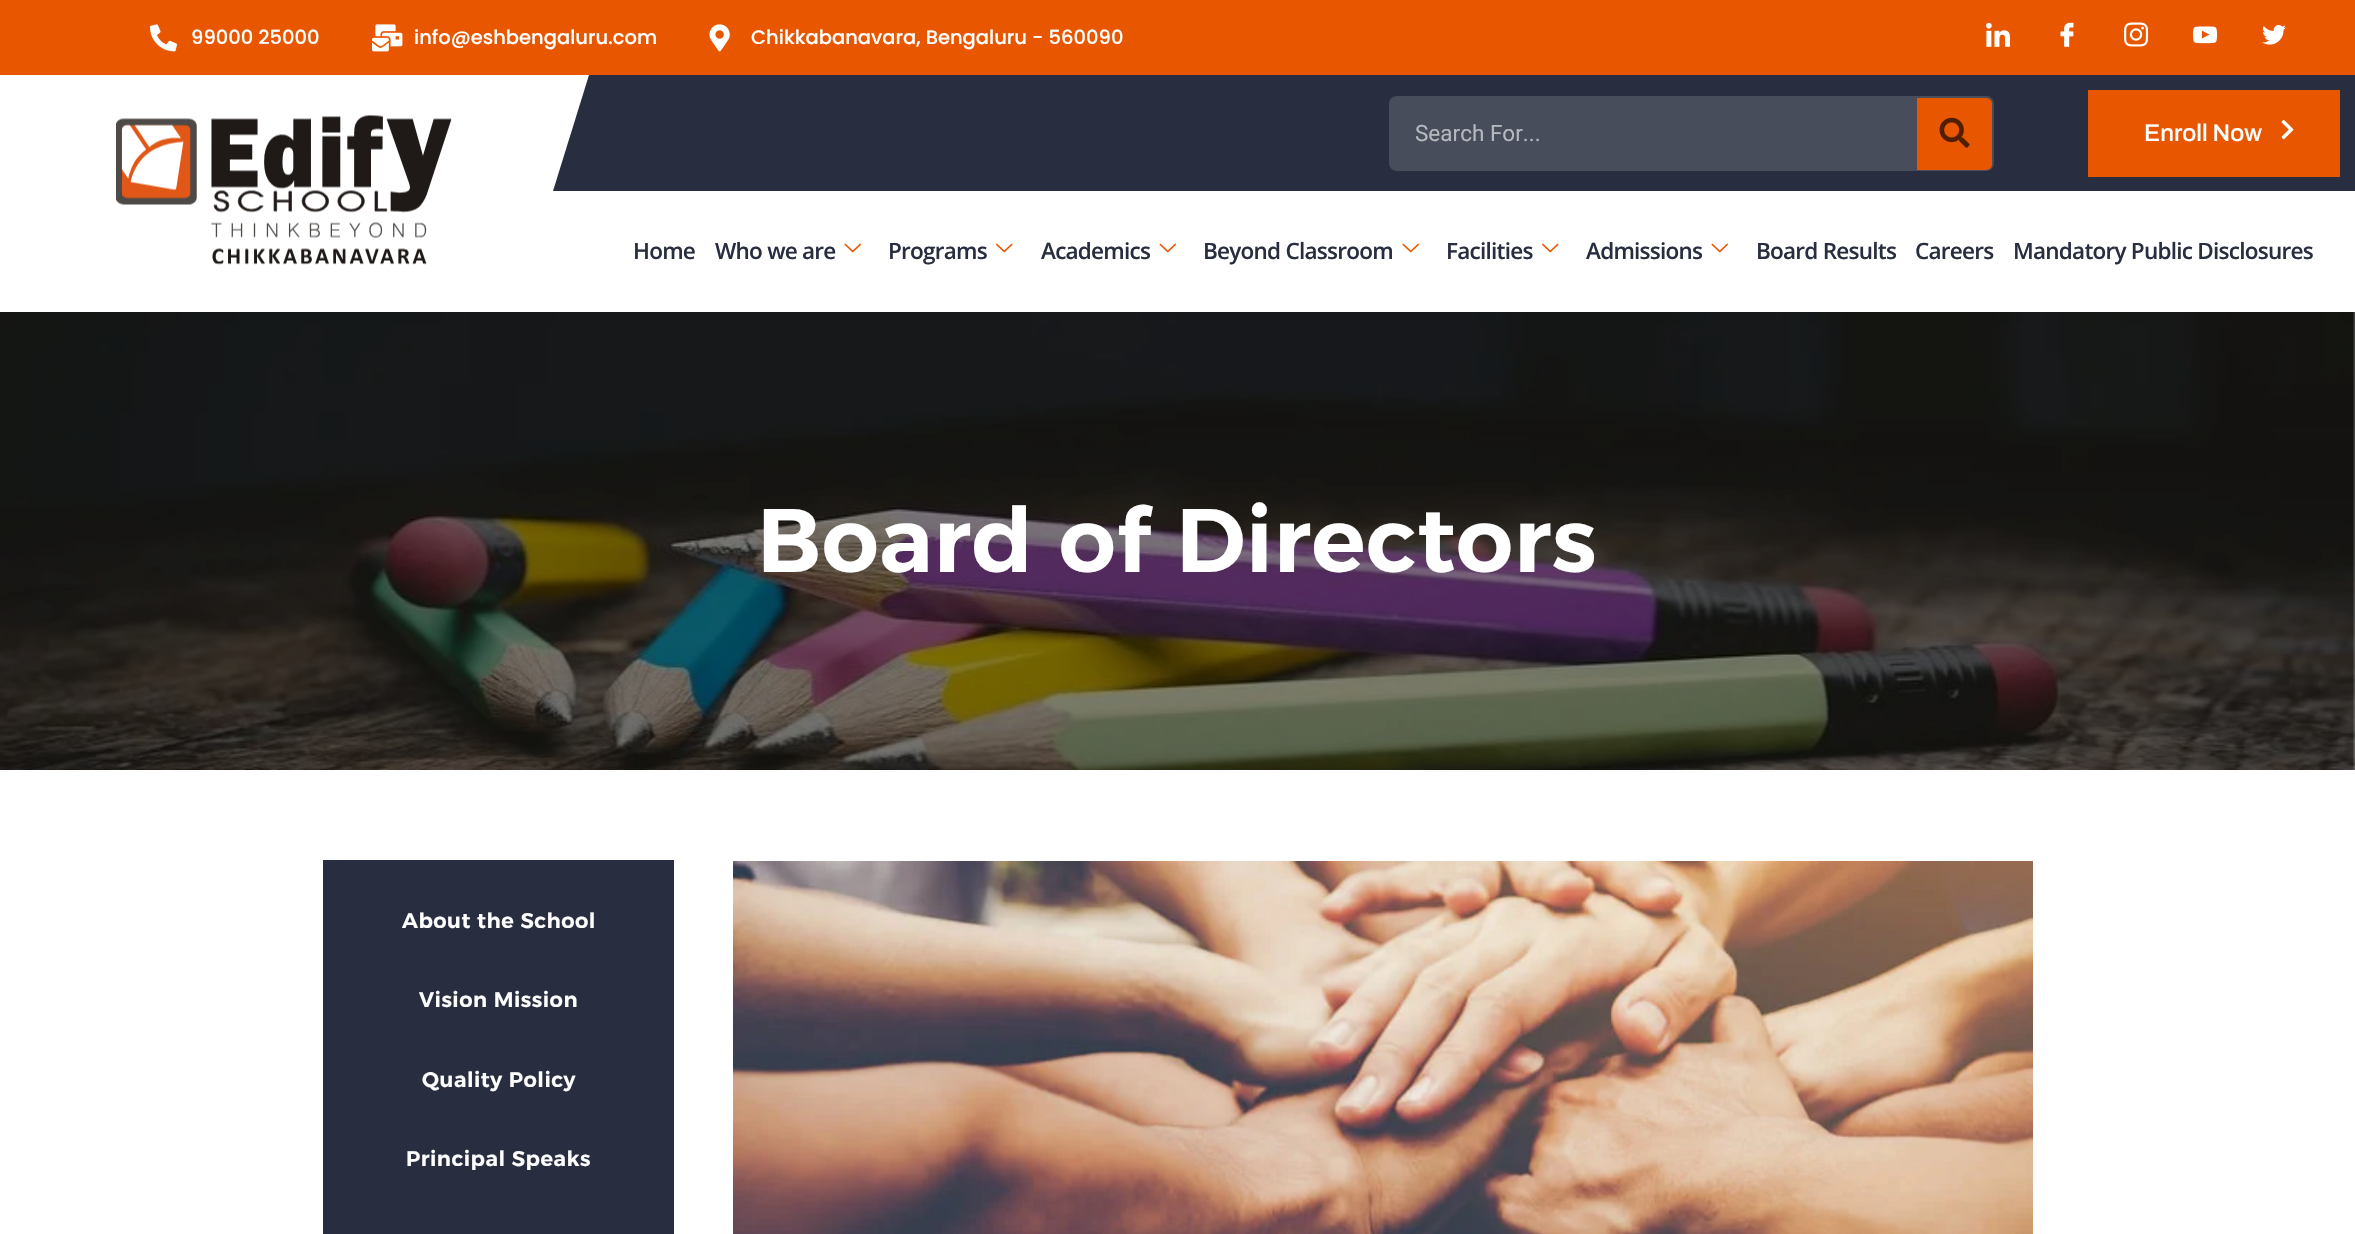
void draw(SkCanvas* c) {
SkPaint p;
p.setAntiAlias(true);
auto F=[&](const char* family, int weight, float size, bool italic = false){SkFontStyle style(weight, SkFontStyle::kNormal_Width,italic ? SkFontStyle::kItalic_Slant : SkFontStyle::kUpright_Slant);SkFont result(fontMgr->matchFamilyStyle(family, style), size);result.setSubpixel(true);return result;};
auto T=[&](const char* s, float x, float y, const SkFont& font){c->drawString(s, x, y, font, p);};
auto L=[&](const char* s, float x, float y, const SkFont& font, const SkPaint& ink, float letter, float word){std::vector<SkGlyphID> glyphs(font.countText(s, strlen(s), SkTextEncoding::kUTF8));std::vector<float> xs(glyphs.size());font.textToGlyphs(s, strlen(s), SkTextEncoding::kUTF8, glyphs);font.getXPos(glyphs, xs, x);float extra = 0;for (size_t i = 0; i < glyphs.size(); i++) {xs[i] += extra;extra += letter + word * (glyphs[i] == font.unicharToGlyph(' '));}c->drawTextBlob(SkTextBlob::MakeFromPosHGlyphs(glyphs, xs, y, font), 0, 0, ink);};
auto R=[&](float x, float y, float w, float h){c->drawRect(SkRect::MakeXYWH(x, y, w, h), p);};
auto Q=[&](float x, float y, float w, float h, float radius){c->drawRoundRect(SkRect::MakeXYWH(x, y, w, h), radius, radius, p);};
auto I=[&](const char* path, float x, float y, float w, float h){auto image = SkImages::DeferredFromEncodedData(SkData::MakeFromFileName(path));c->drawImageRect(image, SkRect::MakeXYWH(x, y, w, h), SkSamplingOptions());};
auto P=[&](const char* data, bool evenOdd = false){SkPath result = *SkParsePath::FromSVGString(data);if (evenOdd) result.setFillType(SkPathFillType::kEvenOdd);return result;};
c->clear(0xffffffff);
p.setColor(0xffe85700);
R(0,0,2355,75);
I("1.png",150,24,27,28);
auto f1 = F("Poppins",500,19.5);
p.setColor(0xffffffff);
T("99000 25000",191,44,f1);
I("2.png",372,24,31,28);
T("info@eshbengaluru.com",414,44,f1);
I("3.png",709,24,21,28);
T("Chikkabanavara, Bengaluru - 560090",751,44,f1);
I("4.png",1986,22,24,25);
I("5.png",2060,22,14,25);
I("6.png",2124,22,25,25);
I("7.png",2193,26,24,18);
I("8.png",2262,25,24,20);
p.setColor(0xff282e3f);
R(553,75,1802,116);
p.setColor(0xffffffff);
c->drawPath(P("M0 75v116h553l36-116z"),p);
p.setColor(0xff484d5c);
Q(1389,96,605,75,8);
auto f2 = F("Roboto",400,22.5);
p.setColor(0xffb6b8be);
T("Search For...",1415,141,f2);
p.setColor(0xffe85700);
c->drawPath(P("M1917 98h69c3.5 0 6 2.5 6 6v60c0 3.5-2.5 6-6 6h-69z"),p);
I("9.png",1939,117,31,31);
R(2088,90,252,87);
auto f3 = F("Archivo",500,24);
p.setColor(0xffffffff);
T("Enroll Now",2144,141,f3);
I("10.png",2281,120,13,20);
I("11.png",116,115,336,150);
auto f4 = F("Open Sans",600,22.5);
p.setColor(0xff282e3f);
L("Home",633,259,f4,p,-.75,0);
L("Who we are",715,259,f4,p,-.75,0);
I("12.png",844,243,17,10);
L("Programs",888,259,f4,p,-.75,0);
I("13.png",996,243,17,10);
L("Academics",1041,259,f4,p,-.75,0);
I("12.png",1159,243,17,10);
L("Beyond Classroom",1203,259,f4,p,-.75,0);
I("12.png",1402,243,17,10);
L("Facilities",1446,259,f4,p,-.75,0);
I("13.png",1542,243,17,10);
L("Admissions",1586,259,f4,p,-.75,0);
I("12.png",1711,243,17,10);
L("Board Results",1756,259,f4,p,-.75,0);
L("Careers",1915,259,f4,p,-.75,0);
L("Mandatory Public Disclosures",2013,259,f4,p,-.75,0);
I("14.png",0,312,2355,458);
auto f5 = F("Alexandria",600,90);
p.setColor(0xffffffff);
L("Board of Directors",757,572,f5,p,.6,0);
p.setColor(0xff282e3f);
R(323,860,351,374);
auto f6 = F("Alexandria",600,21);
p.setColor(0xffffffff);
L("About the School",402,928,f6,p,.5,0);
L("Vision Mission",419,1007,f6,p,.5,0);
L("Quality Policy",422,1087,f6,p,.5,0);
L("Principal Speaks",406,1166,f6,p,.5,0);
I("15.png",733,861,1300,373);
}
